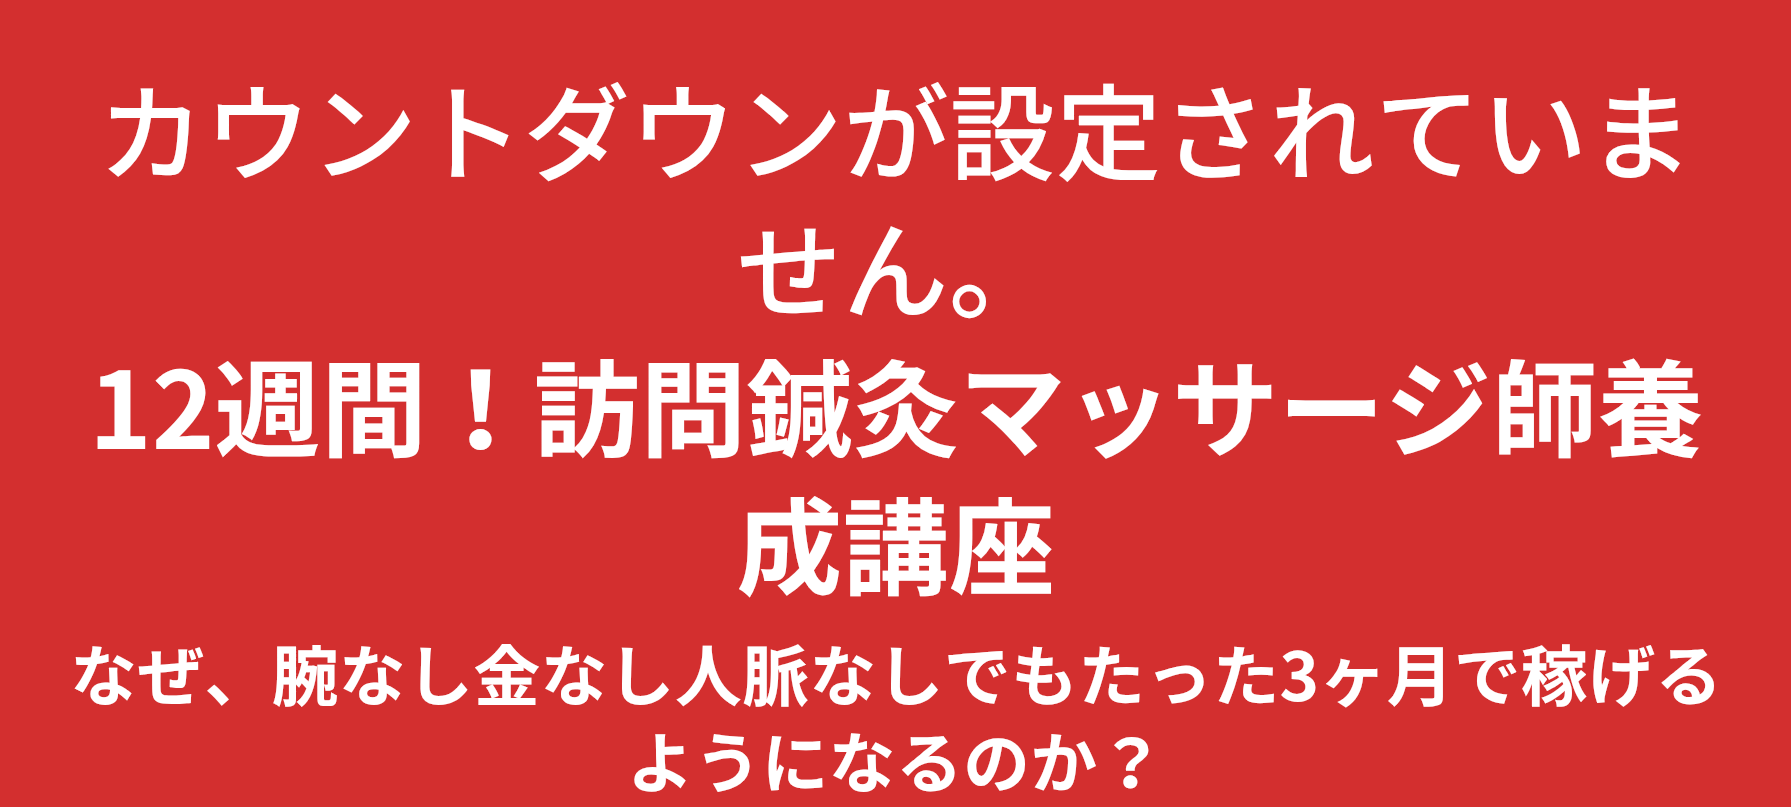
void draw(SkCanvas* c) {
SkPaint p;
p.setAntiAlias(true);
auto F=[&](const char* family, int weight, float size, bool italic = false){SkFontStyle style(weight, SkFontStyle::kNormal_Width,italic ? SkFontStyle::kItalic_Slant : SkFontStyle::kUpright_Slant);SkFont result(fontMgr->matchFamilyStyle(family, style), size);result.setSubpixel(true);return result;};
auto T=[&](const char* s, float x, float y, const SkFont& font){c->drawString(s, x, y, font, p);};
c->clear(0xffd32f2f);
auto f1 = F("Noto Sans JP",500,106.4);
p.setColor(0xffffffff);
T("カウントダウンが設定されていま",98,173,f1);
T("せん。",736,311,f1);
auto f2 = F("Noto Sans JP",700,106.4);
T("12週間！訪問鍼灸マッサージ師養",89,449,f2);
T("成講座",736,587,f2);
auto f3 = F("Noto Sans JP",700,67.2);
T("なぜ、腕なし金なし人脈なしでもたった3ヶ月で稼げる",70,701,f3);
T("ようになるのか？",627,788,f3);
}
